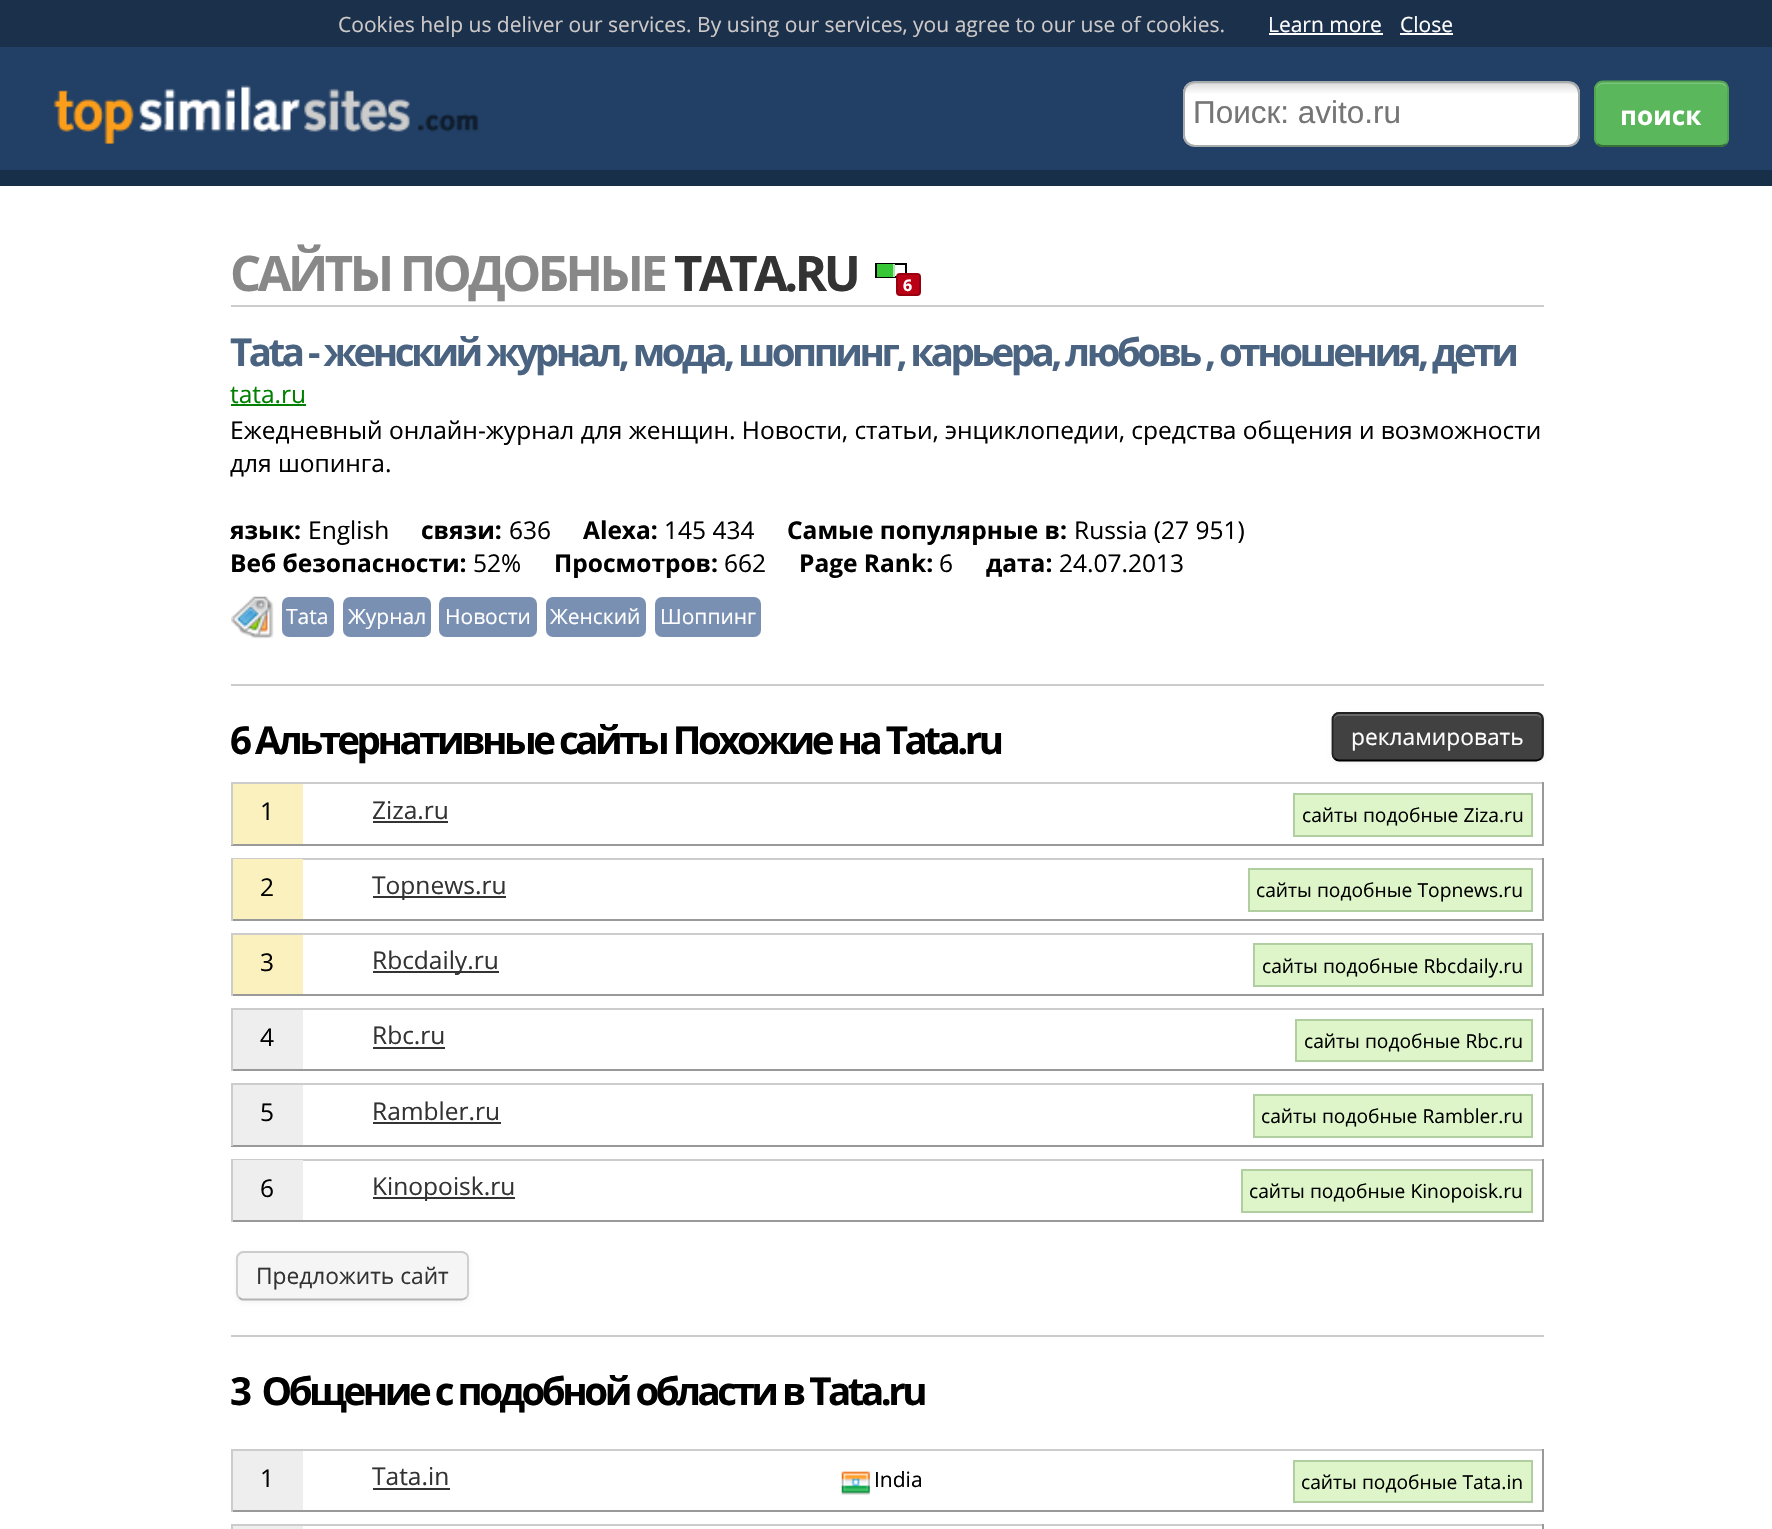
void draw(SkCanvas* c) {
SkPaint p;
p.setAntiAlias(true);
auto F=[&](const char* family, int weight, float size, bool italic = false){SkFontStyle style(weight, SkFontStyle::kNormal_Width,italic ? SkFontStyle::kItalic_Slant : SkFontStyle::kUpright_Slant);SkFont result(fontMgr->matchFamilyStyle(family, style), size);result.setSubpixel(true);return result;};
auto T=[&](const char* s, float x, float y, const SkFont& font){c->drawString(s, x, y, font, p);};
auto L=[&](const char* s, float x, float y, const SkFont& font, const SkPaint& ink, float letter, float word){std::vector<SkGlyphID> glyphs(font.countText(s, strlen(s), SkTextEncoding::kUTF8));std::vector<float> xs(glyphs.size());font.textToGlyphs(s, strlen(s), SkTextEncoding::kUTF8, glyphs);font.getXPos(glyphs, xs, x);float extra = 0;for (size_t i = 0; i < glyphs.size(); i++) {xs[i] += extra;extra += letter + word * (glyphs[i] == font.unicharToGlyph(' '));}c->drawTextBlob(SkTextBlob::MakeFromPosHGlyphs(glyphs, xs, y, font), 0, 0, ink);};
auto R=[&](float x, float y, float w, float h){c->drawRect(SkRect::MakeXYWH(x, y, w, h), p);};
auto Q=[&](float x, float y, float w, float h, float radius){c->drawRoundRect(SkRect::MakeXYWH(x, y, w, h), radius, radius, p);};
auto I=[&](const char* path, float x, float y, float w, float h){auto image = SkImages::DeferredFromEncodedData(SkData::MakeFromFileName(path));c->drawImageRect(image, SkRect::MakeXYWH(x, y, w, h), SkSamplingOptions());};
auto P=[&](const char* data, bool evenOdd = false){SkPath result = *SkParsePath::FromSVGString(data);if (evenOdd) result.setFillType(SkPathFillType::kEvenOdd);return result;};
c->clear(0xffffffff);
p.setColor(0xff1b304a);
R(0,0,1772,47);
auto f1 = F("Open Sans",400,21);
p.setColor(0xffcdc9c9);
T("Cookies help us deliver our services. By using our services, you agree to our use of cookies.",338,32,f1);
p.setColor(0xffffffff);
T("Learn more",1268,32,f1);
R(1269,33,114,2);
T("Close",1400,32,f1);
R(1400,33,53,2);
p.setColor(0xff224066);
R(0,47,1772,123);
p.setColor(0xff182f49);
R(0,170,1772,16);
I("1.png",53,85,426,59);
c->save();
c->clipPath(P("M1195 81h373c6.5 0 12 5.5 12 12v42c0 6.5-5.5 12-12 12h-373c-6.5 0-12-5.5-12-12v-42c0-6.5 5.5-12 12-12z"),true);
{
const SkColor colors[] = {0xffdadada,0xffffffff,0xffffffff};
const float stops[] = {0,.2,1};
const SkPoint ends[] = {{1382,82}, {1382,145}};
p.setShader(SkGradientShader::MakeLinear(ends, colors, stops, 3, SkTileMode::kClamp));
p.setAlpha(255);
}
R(1183,82,397,63);
c->restore();
p.setShader(nullptr);
p.setColor(0x12000000);
c->drawPath(P("M1195 84h373c6 0 10 5 10 10v42v4c0-2 1-4 1-6v-41c0-6-5-11-11-11h-372c-6 0-11 5-11 11v1c0-5 4-10 10-10z"),p);
p.setStroke(true);
p.setStrokeWidth(2);
p.setColor(0xffa8acad);
c->drawRoundRect(SkRect::MakeXYWH(1184,82,395,64),11,11,p);
auto f2 = F("Liberation Sans",400,31.5);
p.setStroke(false);
p.setColor(0xff757575);
T("Поиск: avito.ru",1193,123,f2);
p.setColor(0xff5bb75b);
Q(1594,81,135,66,9);
p.setColor(0xff7cc57c);
c->drawPath(P("M1603 84h117c4 0 7 3 7 7v-2c0-4-3-7-7-7h-117c-4 0-7 3-7 7v2c0-4 3-7 7-7z"),p);
p.setStroke(true);
p.setStrokeWidth(1.8);
p.setColor(0xff387038);
c->drawPath(P("M1726 144c-1.5 1.5-3.5 2-6 2h-117c-2 0-4-.5-5.5-2"),p);
p.setColor(0xff51a351);
c->drawPath(P("M1597.5 144c-1.5-1.5-2.5-3.5-2.5-6v-49c0-2 1-4 2.5-5.5c1.5-1.5 3.5-2 5.5-2h117c2.5 0 4.5 .5 6 2c1.5 1.5 2 3.5 2 5.5v49c0 2.5-.5 4.5-2 6"),p);
auto f3 = F("Open Sans",700,26);
p.setStroke(false);
p.setColor(0xffffffff);
T("поиск",1620,125,f3);
p.setColor(0xffcccccc);
R(231,305,1313,2);
auto f4 = F("Open Sans",700,49);
p.setColor(0xff888888);
L("САЙТЫ ПОДОБНЫЕ",230,291,f4,p,-3.5,0);
p.setColor(0xff333333);
L("TATA.RU",674,291,f4,p,-3.5,0);
p.setStroke(true);
p.setStrokeWidth(2);
p.setColor(0xff000000);
c->drawRect(SkRect::MakeXYWH(876,264,30,13),p);
p.setStroke(false);
p.setColor(0xff37c635);
R(877,264,16,13);
p.setColor(0xffaee6ac);
R(893,264,2,13);
p.setColor(0xffb90014);
c->drawRoundRect(SkRect::MakeXYWH(897,274,23,21),3,3,p);
p.setStroke(true);
p.setColor(0xff980010);
c->drawRoundRect(SkRect::MakeXYWH(897,274,23,21),3,3,p);
auto f5 = F("Open Sans",700,16);
p.setStroke(false);
p.setColor(0xffffffff);
T("6",903,291,f5);
auto f6 = F("Open Sans",700,38.5);
p.setColor(0xff4a6381);
L("Tata - женский журнал, мода, шоппинг, карьера, любовь , отношения, дети",230,366,f6,p,-3.5,0);
auto f7 = F("Open Sans",400,24.5);
p.setColor(0xff008000);
T("tata.ru",230,403,f7);
R(231,404,75,2);
p.setColor(0xff000000);
T("Ежедневный онлайн-журнал для женщин. Новости, статьи, энциклопедии, средства общения и возможности",230,439,f7);
T("для шопинга.",230,472,f7);
auto f8 = F("Open Sans",700,24.5);
T("язык:",230,539,f8);
T("English",308,539,f7);
T("связи:",421,539,f8);
T("636",509,539,f7);
T("Alexa:",583,539,f8);
T("145 434",664,539,f7);
T("Самые популярные в:",787,539,f8);
T("Russia (27 951)",1074,539,f7);
T("Веб безопасности:",230,572,f8);
T("52%",473,572,f7);
T("Просмотров:",554,572,f8);
T("662",724,572,f7);
T("Page Rank:",799,572,f8);
T("6",939,572,f7);
T("дата:",986,572,f8);
T("24.07.2013",1059,572,f7);
I("2.png",231,596,43,43);
p.setColor(0xff7a90b3);
Q(282,597,52,40,7);
p.setColor(0xffffffff);
T("Tata",286,624,f1);
p.setColor(0xff7a90b3);
Q(343,597,88,40,7);
p.setColor(0xffffffff);
T("Журнал",348,624,f1);
p.setColor(0xff7a90b3);
Q(439,597,98,40,7);
p.setColor(0xffffffff);
T("Новости",445,624,f1);
p.setColor(0xff7a90b3);
Q(546,597,100,40,7);
p.setColor(0xffffffff);
T("Женский",550,624,f1);
p.setColor(0xff7a90b3);
Q(655,597,106,40,7);
p.setColor(0xffffffff);
T("Шоппинг",660,624,f1);
p.setColor(0xffcccccc);
R(231,684,1313,2);
p.setColor(0xff000000);
L("6 Альтернативные сайты Похожие на Tata.ru",230,754,f6,p,-3.5,0);
p.setColor(0x0d000000);
p.setMaskFilter(SkMaskFilter::MakeBlur(kNormal_SkBlurStyle, 2));
c->drawRoundRect(SkRect::MakeXYWH(1332,714,212,49),7,7,p);
p.setMaskFilter(nullptr);
p.setColor(0xff414141);
Q(1332,712,212,49,7);
p.setColor(0xff676767);
c->drawPath(P("M1339 716h197c3 0 6 2 6 5v-2c0-3-2-5-5-5h-198c-3 0-5 2-5 5v2c0-3 2-5 5-5z"),p);
p.setStroke(true);
p.setStrokeWidth(1.8);
p.setColor(0xff000000);
c->drawPath(P("M1541 758.5c-1.5 1-3 2-4.5 2h-197.5c-2 0-3.5-1-4.5-2"),p);
p.setColor(0xff222222);
c->drawPath(P("M1334.5 758.5c-1-1-2-2.5-2-4.5v-35c0-1.5 1-3 2-4c1-1 2.5-2 4.5-2h197.5c1.5 0 3 1 4.5 2c1 1 1.5 2.5 1.5 4v35c0 2-.5 3.5-1.5 4.5"),p);
auto f9 = F("Open Sans",400,22.75);
p.setStroke(false);
p.setColor(0xffffffff);
T("рекламировать",1351,745,f9);
p.setColor(0xffcccccc);
R(231,782,1313,2);
p.setColor(0xff999999);
R(1542,782,2,63);
R(231,844,1313,2);
p.setColor(0xffcccccc);
R(231,782,2,63);
p.setColor(0xfffaf1bf);
R(233,784,70,60);
p.setColor(0xff000000);
T("1",260,820,f7);
p.setColor(0xff333333);
T("Ziza.ru",372,819,f7);
R(373,821,75,2);
p.setColor(0xffddf5c8);
c->drawRect(SkRect::MakeXYWH(1294,794,238,42),p);
p.setStroke(true);
p.setStrokeWidth(2);
p.setColor(0xffb1cea1);
c->drawRect(SkRect::MakeXYWH(1294,794,238,42),p);
auto f10 = F("Open Sans",400,19.25);
p.setStroke(false);
p.setColor(0xff000000);
T("сайты подобные Ziza.ru",1302,822,f10);
p.setColor(0xffcccccc);
R(231,858,1313,2);
p.setColor(0xff999999);
R(1542,858,2,63);
R(231,919,1313,2);
p.setColor(0xffcccccc);
R(231,858,2,63);
p.setColor(0xfffaf1bf);
R(233,859,70,60);
p.setColor(0xff000000);
T("2",260,896,f7);
p.setColor(0xff333333);
R(373,896,133,2);
T("Topnews.ru",372,894,f7);
p.setColor(0xffddf5c8);
c->drawRect(SkRect::MakeXYWH(1249,869,283,42),p);
p.setStroke(true);
p.setColor(0xffb1cea1);
c->drawRect(SkRect::MakeXYWH(1249,869,283,42),p);
p.setStroke(false);
p.setColor(0xff000000);
T("сайты подобные Topnews.ru",1256,897,f10);
p.setColor(0xffcccccc);
R(231,933,1313,2);
p.setColor(0xff999999);
R(1542,933,2,63);
R(231,994,1313,2);
p.setColor(0xffcccccc);
R(231,933,2,63);
p.setColor(0xfffaf1bf);
R(233,935,70,59);
p.setColor(0xff000000);
T("3",260,971,f7);
p.setColor(0xff333333);
R(373,971,126,2);
T("Rbcdaily.ru",372,969,f7);
p.setColor(0xffddf5c8);
c->drawRect(SkRect::MakeXYWH(1254,944,278,42),p);
p.setStroke(true);
p.setColor(0xffb1cea1);
c->drawRect(SkRect::MakeXYWH(1254,944,278,42),p);
p.setStroke(false);
p.setColor(0xff000000);
T("сайты подобные Rbcdaily.ru",1262,973,f10);
p.setColor(0xffcccccc);
R(231,1008,1313,2);
p.setColor(0xff999999);
R(1542,1008,2,63);
R(231,1069,1313,2);
p.setColor(0xffcccccc);
R(231,1008,2,63);
p.setColor(0xffeeeeee);
R(233,1010,70,59);
p.setColor(0xff000000);
T("4",260,1046,f7);
p.setColor(0xff333333);
T("Rbc.ru",372,1044,f7);
R(373,1047,72,2);
p.setColor(0xffddf5c8);
c->drawRect(SkRect::MakeXYWH(1296,1020,236,41),p);
p.setStroke(true);
p.setColor(0xffb1cea1);
c->drawRect(SkRect::MakeXYWH(1296,1020,236,41),p);
p.setStroke(false);
p.setColor(0xff000000);
T("сайты подобные Rbc.ru",1304,1048,f10);
p.setColor(0xffcccccc);
R(231,1083,1313,2);
p.setColor(0xff999999);
R(1542,1083,2,63);
R(231,1145,1313,2);
p.setColor(0xffcccccc);
R(231,1083,2,63);
p.setColor(0xffeeeeee);
R(233,1085,70,60);
p.setColor(0xff000000);
T("5",260,1121,f7);
p.setColor(0xff333333);
T("Rambler.ru",372,1120,f7);
R(373,1122,128,2);
p.setColor(0xffddf5c8);
c->drawRect(SkRect::MakeXYWH(1254,1095,278,42),p);
p.setStroke(true);
p.setColor(0xffb1cea1);
c->drawRect(SkRect::MakeXYWH(1254,1095,278,42),p);
p.setStroke(false);
p.setColor(0xff000000);
T("сайты подобные Rambler.ru",1261,1123,f10);
p.setColor(0xffcccccc);
R(231,1159,1313,2);
p.setColor(0xff999999);
R(1542,1159,2,63);
R(231,1220,1313,2);
p.setColor(0xffcccccc);
R(231,1159,2,63);
p.setColor(0xffeeeeee);
R(233,1160,70,60);
p.setColor(0xff000000);
T("6",260,1197,f7);
p.setColor(0xff333333);
R(373,1197,142,2);
T("Kinopoisk.ru",372,1195,f7);
p.setColor(0xffddf5c8);
c->drawRect(SkRect::MakeXYWH(1242,1170,290,42),p);
p.setStroke(true);
p.setColor(0xffb1cea1);
c->drawRect(SkRect::MakeXYWH(1242,1170,290,42),p);
p.setStroke(false);
p.setColor(0xff000000);
T("сайты подобные Kinopoisk.ru",1249,1198,f10);
p.setColor(0x0d000000);
p.setMaskFilter(SkMaskFilter::MakeBlur(kNormal_SkBlurStyle, 2));
c->drawRoundRect(SkRect::MakeXYWH(236,1253,233,49),7,7,p);
p.setMaskFilter(nullptr);
p.setColor(0xfff5f5f5);
Q(236,1251,233,49,7);
p.setStroke(true);
p.setStrokeWidth(1.8);
p.setColor(0xffb3b3b3);
c->drawPath(P("M466.5 1297.5c-1.5 1-3 2-4.5 2h-219c-1.5 0-3-1-4-2"),p);
p.setColor(0xffcccccc);
c->drawPath(P("M239 1297.5c-1-1-2-2.5-2-4.5v-35c0-1.5 1-3 2-4c1-1 2.5-2 4-2h219c1.5 0 3 1 4.5 2c1 1 1.5 2.5 1.5 4v35c0 2-.5 3.5-1.5 4.5"),p);
p.setStroke(false);
p.setColor(0xff333333);
T("Предложить сайт",256,1284,f9);
p.setColor(0xffcccccc);
R(231,1335,1313,2);
p.setColor(0xff000000);
L("3  Общение с подобной области в Tata.ru",230,1405,f6,p,-3.5,0);
p.setColor(0xffcccccc);
R(231,1449,1313,2);
p.setColor(0xff999999);
R(1542,1449,2,63);
R(231,1510,1313,2);
p.setColor(0xffcccccc);
R(231,1449,2,63);
p.setColor(0xffeeeeee);
R(233,1451,70,59);
p.setColor(0xff000000);
T("1",260,1487,f7);
p.setColor(0xff333333);
T("Tata.in",372,1485,f7);
R(373,1488,77,2);
I("3.png",841,1471,29,24);
p.setColor(0xff000000);
T("India",874,1487,f1);
p.setColor(0xffddf5c8);
c->drawRect(SkRect::MakeXYWH(1294,1461,238,41),p);
p.setStroke(true);
p.setStrokeWidth(2);
p.setColor(0xffb1cea1);
c->drawRect(SkRect::MakeXYWH(1294,1461,238,41),p);
p.setStroke(false);
p.setColor(0xff000000);
T("сайты подобные Tata.in",1301,1489,f10);
p.setColor(0xffcccccc);
R(231,1524,1313,2);
p.setColor(0xff999999);
R(1542,1524,2,5);
p.setColor(0xffcccccc);
R(231,1524,2,5);
p.setColor(0xffeeeeee);
R(233,1526,70,3);
}
